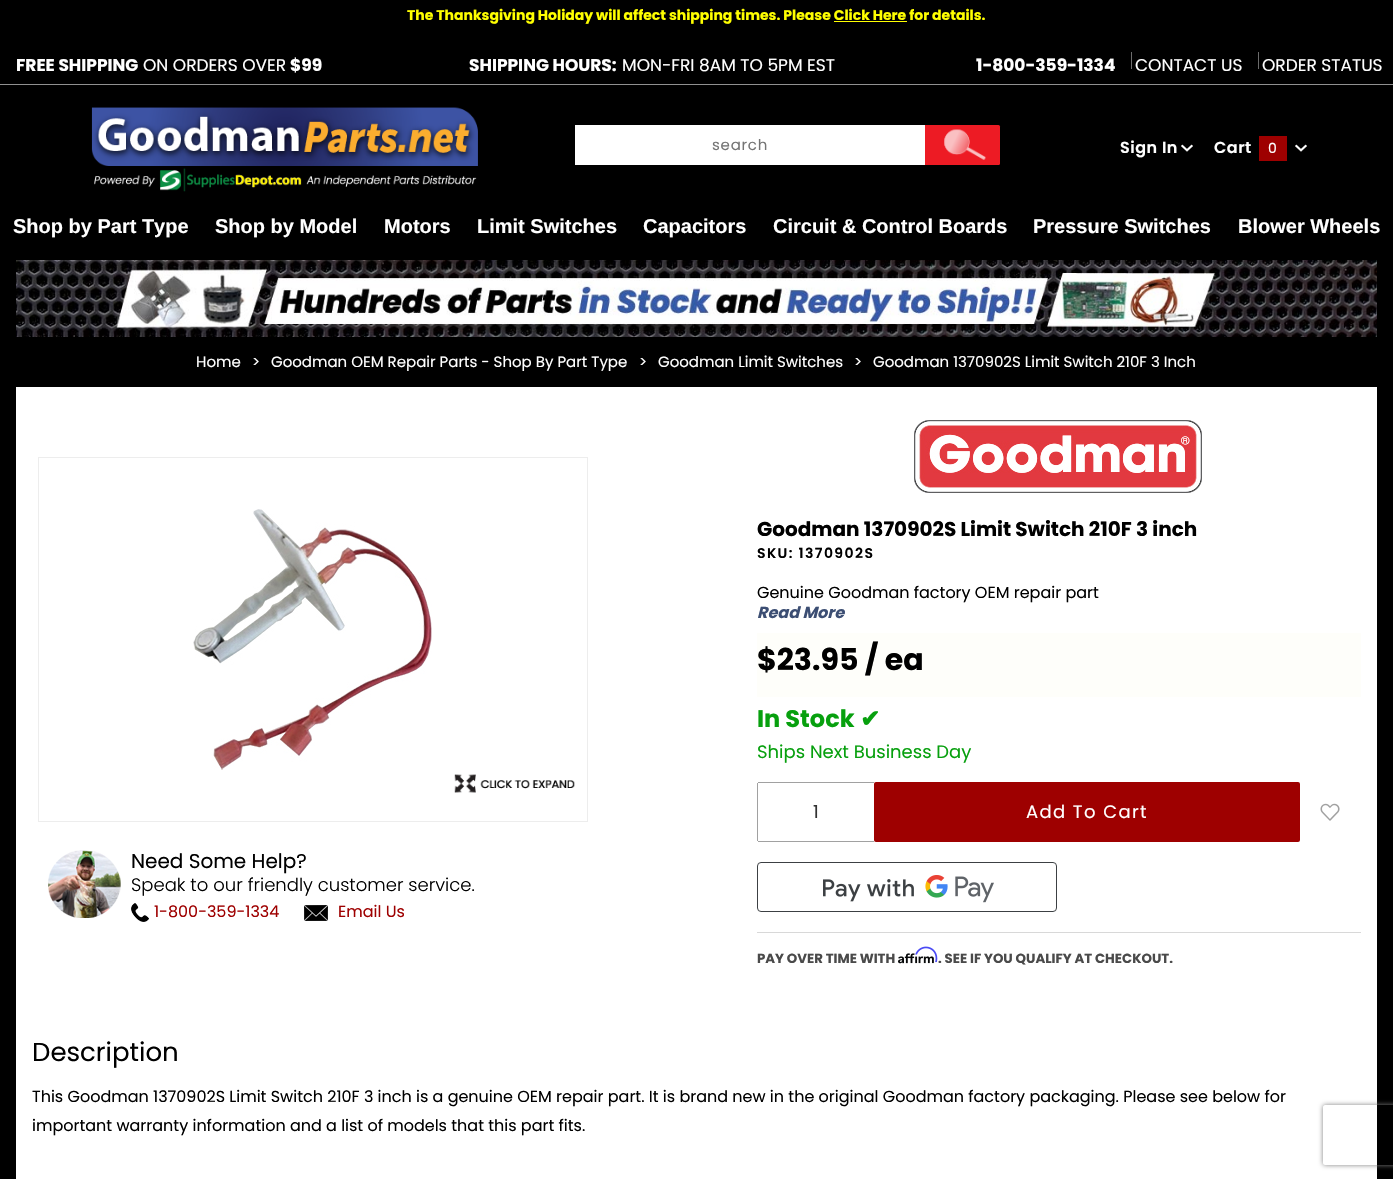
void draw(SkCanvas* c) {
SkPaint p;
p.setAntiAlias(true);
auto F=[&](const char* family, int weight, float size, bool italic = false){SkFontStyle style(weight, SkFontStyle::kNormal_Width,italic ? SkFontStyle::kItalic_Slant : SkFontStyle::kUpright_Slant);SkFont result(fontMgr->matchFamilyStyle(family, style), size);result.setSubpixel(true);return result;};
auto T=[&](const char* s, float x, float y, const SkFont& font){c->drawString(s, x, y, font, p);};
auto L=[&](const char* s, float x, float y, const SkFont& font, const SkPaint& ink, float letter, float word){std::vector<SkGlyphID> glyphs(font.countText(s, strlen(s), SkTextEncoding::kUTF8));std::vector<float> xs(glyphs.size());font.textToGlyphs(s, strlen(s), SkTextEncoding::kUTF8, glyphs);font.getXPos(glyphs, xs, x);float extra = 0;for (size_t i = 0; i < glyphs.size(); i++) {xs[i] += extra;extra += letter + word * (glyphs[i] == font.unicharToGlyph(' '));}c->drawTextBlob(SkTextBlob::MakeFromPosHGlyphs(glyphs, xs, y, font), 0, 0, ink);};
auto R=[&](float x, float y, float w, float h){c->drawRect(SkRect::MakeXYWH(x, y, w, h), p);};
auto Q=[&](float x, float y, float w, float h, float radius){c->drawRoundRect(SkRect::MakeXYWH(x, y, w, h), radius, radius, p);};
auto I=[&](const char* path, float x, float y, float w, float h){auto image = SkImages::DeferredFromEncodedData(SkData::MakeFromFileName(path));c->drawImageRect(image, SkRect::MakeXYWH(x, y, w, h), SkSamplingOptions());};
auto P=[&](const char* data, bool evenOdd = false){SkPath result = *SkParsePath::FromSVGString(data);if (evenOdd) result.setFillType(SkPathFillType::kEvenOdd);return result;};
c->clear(0xff000000);
auto f1 = F("Poppins",700,14);
p.setColor(0xffffff00);
T("The Thanksgiving Holiday will affect shipping times. Please Click Here for details.",407,20,f1);
R(834,21,73,1);
p.setColor(0xff909090);
R(0,84,1393,1);
auto f2 = F("Poppins",700,17);
p.setColor(0xffffffff);
T("FREE SHIPPING",16,71,f2);
auto f3 = F("Poppins",400,17);
T("ON ORDERS OVER",143,71,f3);
T("$99",290,71,f2);
T("SHIPPING HOURS:",469,71,f2);
T("MON-FRI 8AM TO 5PM EST",622,71,f3);
T("1-800-359-1334",976,71,f2);
p.setColor(0xff6c6c6c);
R(1131,52,1,17);
p.setColor(0xffffffff);
T("CONTACT US",1135,71,f3);
p.setColor(0xff6c6c6c);
R(1258,52,1,17);
p.setColor(0xffffffff);
T("ORDER STATUS",1262,71,f3);
I("1.png",91,107,387,85);
R(575,125,350,40);
auto f4 = F("Poppins",400,15);
p.setColor(0xff757575);
L("search",712,150,f4,p,.75,0);
I("2.png",925,125,76,40);
auto f5 = F("Poppins",600,16);
p.setColor(0xffffffff);
L("Sign In",1120,153,f5,p,.5,0);
auto f6 = F("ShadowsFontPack",400,12);
L("1",1181,153,f6,p,.5,0);
L("Cart",1214,153,f5,p,.5,0);
p.setColor(0xff9e0000);
R(1259,136,28,25);
auto f7 = F("Poppins",400,14);
p.setColor(0xffffffff);
L("0",1268,153,f7,p,.5,0);
L("1",1295,153,f6,p,.5,0);
auto f8 = F("Liberation Sans",700,20);
T("Shop by Part Type",13,233,f8);
T("Shop by Model",215,233,f8);
T("Motors",384,233,f8);
T("Limit Switches",477,233,f8);
T("Capacitors",643,233,f8);
T("Circuit & Control Boards",773,233,f8);
T("Pressure Switches",1033,233,f8);
T("Blower Wheels",1238,233,f8);
I("3.png",16,260,1361,77);
T("Home",196,367,f4);
T(">",252,367,f4);
T("Goodman OEM Repair Parts - Shop By Part Type",271,367,f4);
T(">",639,367,f4);
T("Goodman Limit Switches",658,367,f4);
T(">",854,367,f4);
T("Goodman 1370902S Limit Switch 210F 3 Inch",873,367,f4);
R(16,387,1361,792);
p.setStroke(true);
p.setStrokeWidth(1);
p.setColor(0xffededed);
c->drawRect(SkRect::MakeXYWH(38.5,457.5,549,364),p);
I("4.png",193,509,239,261);
I("5.png",454,774,121,19);
I("6.png",48,850,73,68);
auto f9 = F("Poppins",400,20);
p.setStroke(false);
p.setColor(0xff000000);
T("Need Some Help?",131,868,f9);
auto f10 = F("Poppins",300,18);
T("Speak to our friendly customer service.",131,891,f10);
I("7.png",131,903,18,19);
auto f11 = F("Poppins",400,16);
p.setColor(0xff9e0000);
T("1-800-359-1334",154,917,f11);
I("8.png",304,905,24,16);
T("Email Us",338,917,f11);
I("9.png",914,420,288,73);
auto f12 = F("Poppins",700,20);
p.setColor(0xff000000);
T("Goodman 1370902S Limit Switch 210F 3 inch",757,536,f12);
auto f13 = F("Poppins",600,14);
L("SKU: 1370902S",757,558,f13,p,1.4,0);
T("Genuine Goodman factory OEM repair part",757,598,f11);
auto f14 = F("Poppins",700,16,true);
p.setColor(0xff3c4e73);
T("Read More",757,618,f14);
p.setColor(0xfffefefa);
R(757,633,604,64);
auto f15 = F("Poppins",700,30);
p.setColor(0xff000000);
T("$23.95 / ea",757,670,f15);
auto f16 = F("Poppins",700,24);
p.setColor(0xff07a00e);
T("In Stock",757,727,f16);
auto f17 = F("DejaVu Sans",700,24);
T("✔",860,727,f17);
auto f18 = F("Poppins",400,18);
T("Ships Next Business Day",757,758,f18);
p.setColor(0xffa1a1a1);
R(758,782,116,1);
R(758,841,116,1);
R(757,783,1,58);
p.setColor(0xff333333);
L("1",813,818,f18,p,1,0);
p.setColor(0xff9e0000);
Q(874,782,426,60,2);
p.setColor(0xffffffff);
L("Add To Cart",1026,818,f18,p,1.4,0);
I("10.png",1320,803,20,18);
I("11.png",823,875,171,28);
p.setStroke(true);
p.setColor(0xff3c4043);
c->drawRoundRect(SkRect::MakeXYWH(757.5,862.5,299,49),3.5,3.5,p);
p.setStroke(false);
p.setColor(0xffd8d8d8);
R(757,932,604,1);
auto f19 = F("Poppins",700,13.3);
p.setColor(0xff4a4a4a);
T("PAY OVER TIME WITH",757,963,f19);
I("13.png",898,953,36,11);
I("12.png",915,946,23,17);
T(". SEE IF YOU QUALIFY AT CHECKOUT.",938,963,f19);
auto f20 = F("Poppins",400,26);
p.setColor(0xff000000);
T("Description",32,1061,f20);
T("This Goodman 1370902S Limit Switch 210F 3 inch is a genuine OEM repair part. It is brand new in the original Goodman factory packaging. Please see below for",32,1102,f11);
T("important warranty information and a list of models that this part fits.",32,1131,f11);
c->save();
c->clipPath(P("M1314 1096h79v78h-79zm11 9h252c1 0 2 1 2 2v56c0 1-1 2-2 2h-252c-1 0-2-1-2-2v-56c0-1 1-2 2-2z",true),true);
p.setColor(0xff808080);
p.setMaskFilter(SkMaskFilter::MakeBlur(kNormal_SkBlurStyle, 2.5));
c->drawRoundRect(SkRect::MakeXYWH(1323,1105,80,60),2,2,p);
p.setMaskFilter(nullptr);
c->restore();
}
